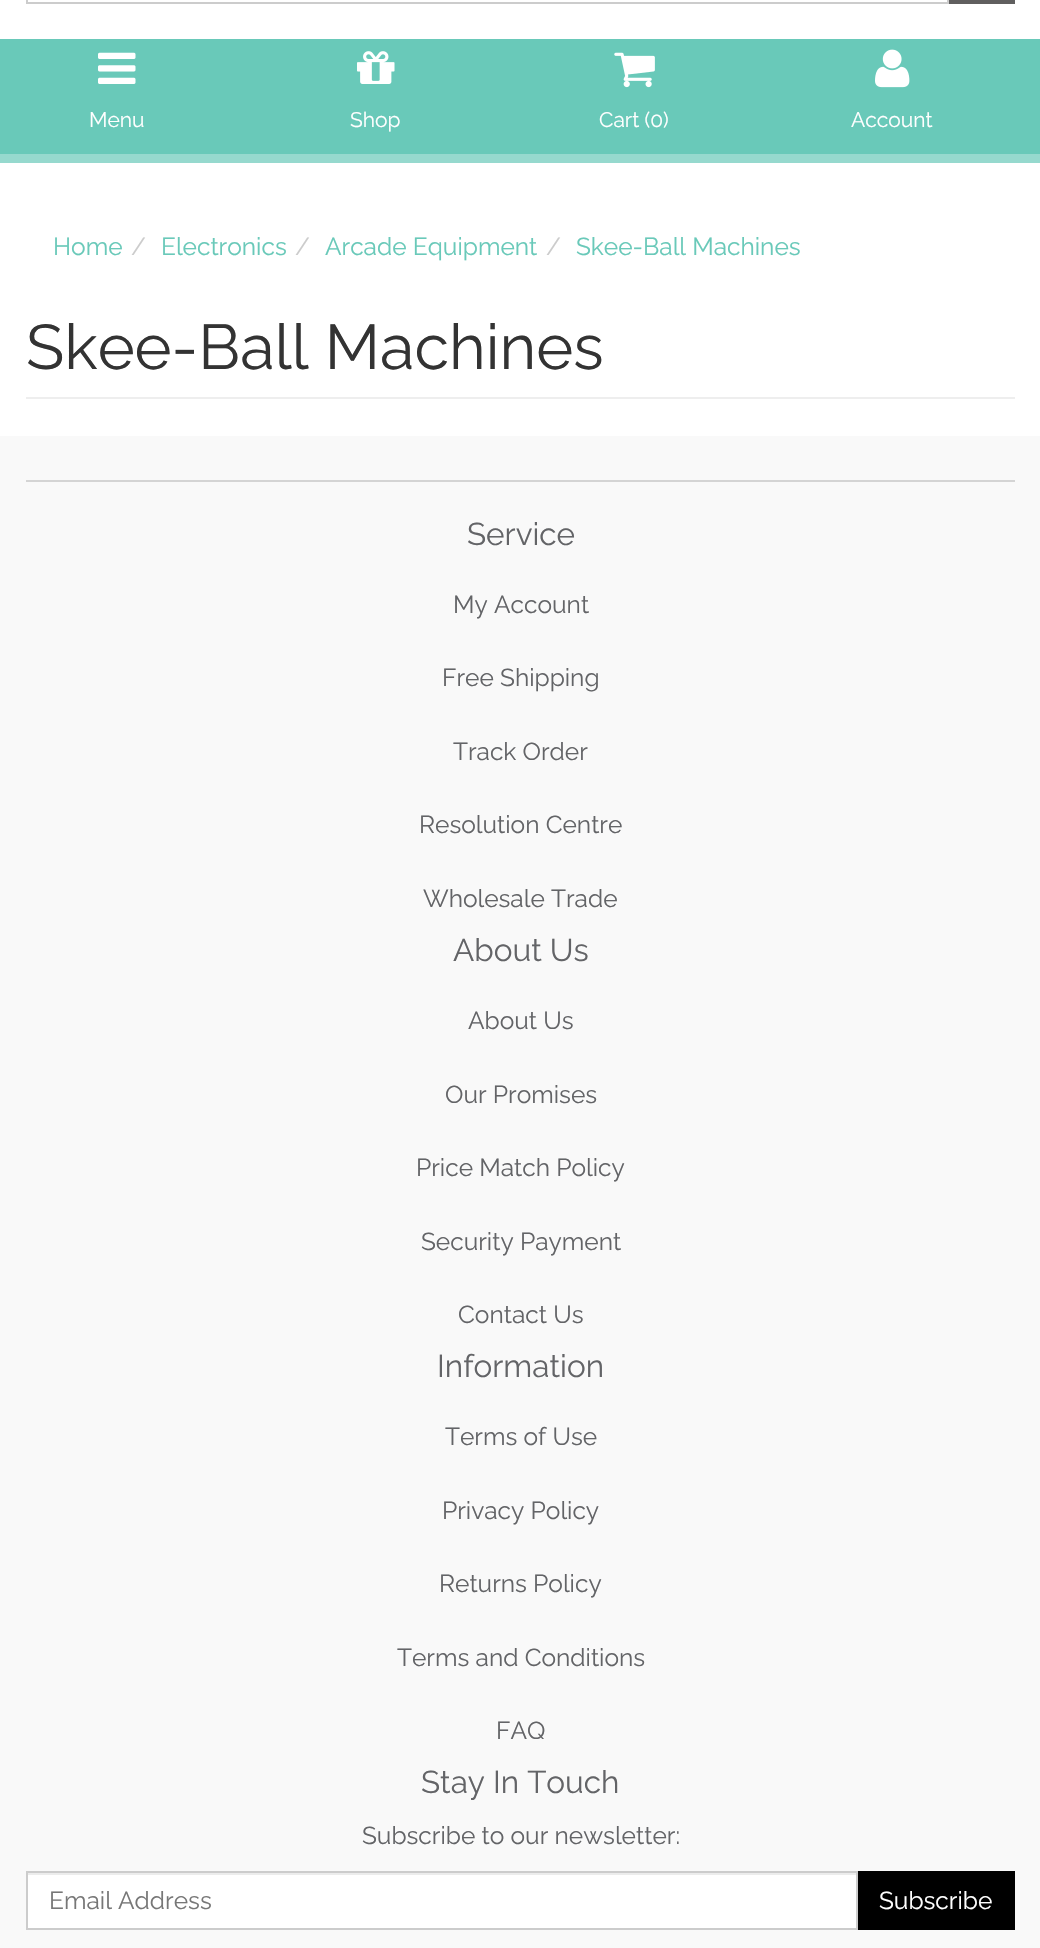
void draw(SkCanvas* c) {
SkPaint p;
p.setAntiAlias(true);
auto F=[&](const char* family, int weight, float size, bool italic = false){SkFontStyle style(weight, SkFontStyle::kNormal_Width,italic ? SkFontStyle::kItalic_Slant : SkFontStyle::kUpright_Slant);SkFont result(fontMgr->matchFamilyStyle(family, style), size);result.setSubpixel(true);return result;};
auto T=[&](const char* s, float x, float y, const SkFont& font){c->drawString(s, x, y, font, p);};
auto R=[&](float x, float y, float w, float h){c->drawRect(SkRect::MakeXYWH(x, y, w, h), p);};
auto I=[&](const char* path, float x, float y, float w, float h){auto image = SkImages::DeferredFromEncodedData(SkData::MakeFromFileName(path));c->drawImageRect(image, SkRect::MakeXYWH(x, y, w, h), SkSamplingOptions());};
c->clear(0xfff9f9f9);
p.setColor(0xffffffff);
R(0,0,1040,39);
p.setColor(0xff605f5f);
R(947,0,68,4);
p.setColor(0xffffffff);
R(947,0,2,2);
p.setStroke(true);
p.setStrokeWidth(2);
p.setColor(0xffcccccc);
c->drawRect(SkRect::MakeXYWH(27,-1,921,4),p);
p.setStroke(false);
p.setColor(0xff69c9b9);
R(0,39,1040,115);
p.setColor(0xff96d9ce);
R(0,154,1040,9);
I("1.png",98,52,38,32);
auto f1 = F("Raleway",400,21);
p.setColor(0xffffffff);
T("Menu",89,127,f1);
I("2.png",357,51,38,33);
T("Shop",350,127,f1);
I("3.png",614,52,41,36);
T("Cart (0)",599,127,f1);
I("4.png",875,49,35,39);
T("Account",851,127,f1);
R(0,163,1040,273);
auto f2 = F("Raleway",400,24.5);
p.setColor(0xff69c9b9);
T("Home",53,255,f2);
p.setColor(0xffcccccc);
T("/",131,255,f2);
p.setColor(0xff69c9b9);
T("Electronics",161,255,f2);
p.setColor(0xffcccccc);
T("/",295,255,f2);
p.setColor(0xff69c9b9);
T("Arcade Equipment",325,255,f2);
p.setColor(0xffcccccc);
T("/",546,255,f2);
p.setColor(0xff69c9b9);
T("Skee-Ball Machines",576,255,f2);
p.setColor(0xffeeeeee);
R(26,397,989,2);
auto f3 = F("Raleway",400,63);
p.setColor(0xff333333);
T("Skee-Ball Machines",26,369,f3);
p.setColor(0xffd4d4d4);
R(26,480,989,2);
auto f4 = F("Raleway",400,31.5);
p.setColor(0xff636467);
T("Service",467,545,f4);
T("My Account",453,613,f2);
T("Free Shipping",442,686,f2);
T("Track Order",453,760,f2);
T("Resolution Centre",419,833,f2);
T("Wholesale Trade",423,907,f2);
T("About Us",453,961,f4);
T("About Us",468,1029,f2);
T("Our Promises",445,1103,f2);
T("Price Match Policy",416,1176,f2);
T("Security Payment",421,1250,f2);
T("Contact Us",458,1323,f2);
T("Information",437,1377,f4);
T("Terms of Use",445,1445,f2);
T("Privacy Policy",442,1519,f2);
T("Returns Policy",439,1592,f2);
T("Terms and Conditions",397,1666,f2);
T("FAQ",496,1739,f2);
T("Stay In Touch",421,1793,f4);
T("Subscribe to our newsletter:",362,1844,f2);
p.setColor(0xffffffff);
R(28,1875,828,53);
p.setColor(0xffececec);
R(28,1873,828,2);
p.setStroke(true);
p.setColor(0xffcccccc);
c->drawRect(SkRect::MakeXYWH(27,1872,830,57),p);
p.setStroke(false);
p.setColor(0xff777777);
T("Email Address",49,1909,f2);
p.setColor(0xff000000);
R(858,1871,157,59);
p.setColor(0xffffffff);
T("Subscribe",879,1909,f2);
}
